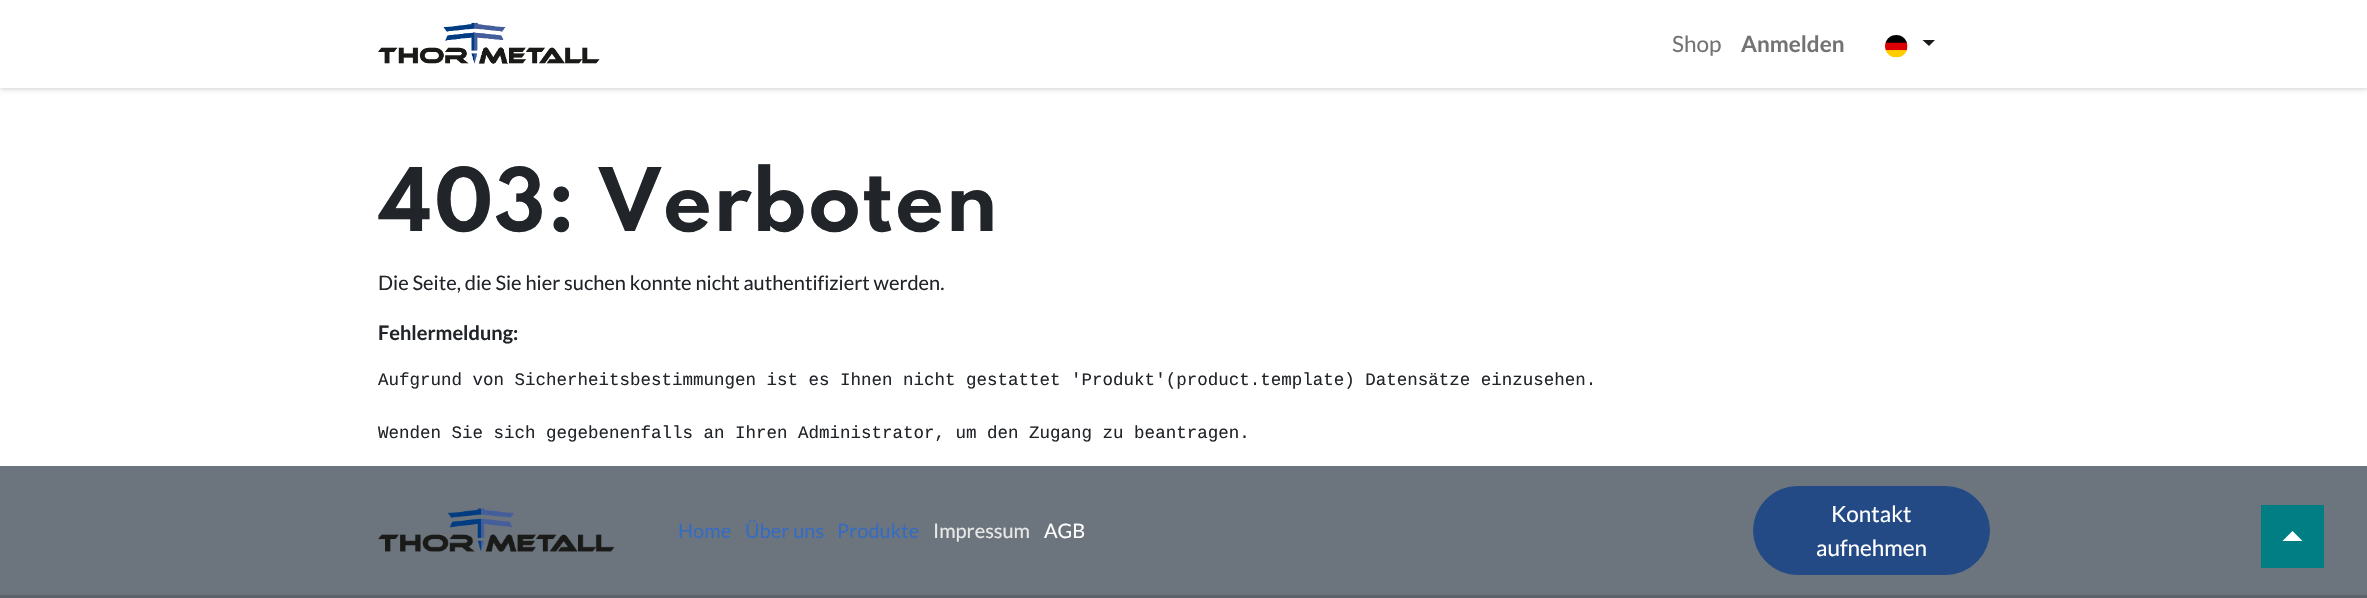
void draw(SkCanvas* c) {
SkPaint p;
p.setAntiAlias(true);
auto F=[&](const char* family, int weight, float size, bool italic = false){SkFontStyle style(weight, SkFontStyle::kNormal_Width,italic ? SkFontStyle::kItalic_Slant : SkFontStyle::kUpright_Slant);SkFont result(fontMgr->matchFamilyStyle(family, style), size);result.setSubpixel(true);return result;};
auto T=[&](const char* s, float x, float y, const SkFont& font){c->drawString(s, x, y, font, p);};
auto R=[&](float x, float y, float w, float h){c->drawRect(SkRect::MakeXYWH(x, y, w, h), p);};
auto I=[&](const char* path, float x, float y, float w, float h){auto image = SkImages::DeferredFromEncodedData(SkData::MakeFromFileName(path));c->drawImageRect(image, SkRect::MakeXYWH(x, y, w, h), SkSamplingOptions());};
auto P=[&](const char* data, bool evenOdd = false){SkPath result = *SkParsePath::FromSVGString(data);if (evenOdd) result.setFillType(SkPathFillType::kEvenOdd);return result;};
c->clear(0xffffffff);
p.setColor(0x40000000);
p.setMaskFilter(SkMaskFilter::MakeBlur(kNormal_SkBlurStyle, 3));
c->drawRect(SkRect::MakeXYWH(0,0,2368,88),p);
p.setMaskFilter(nullptr);
p.setColor(0xffffffff);
R(0,0,2367,88);
I("1.png",378,22,222,42);
auto f1 = F("Lato",400,22.5);
p.setColor(0xff737373);
T("Shop",1672,52,f1);
auto f2 = F("Lato",700,22.5);
T("Anmelden",1741,52,f2);
I("2.png",1885,35,23,23);
p.setColor(0xff1a1a18);
c->drawPath(P("M1922.5 40h12.5l-6 6z"),p);
auto f3 = F("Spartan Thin",700,77.5);
p.setColor(0xff212529);
T("403: Verboten",378,231,f3);
auto f4 = F("Lato",400,20);
T("Die Seite, die Sie hier suchen konnte nicht authentifiziert werden.",378,290,f4);
auto f5 = F("Lato",700,20);
T("Fehlermeldung:",378,340,f5);
auto f6 = F("Liberation Mono",400,17.5);
T("Aufgrund von Sicherheitsbestimmungen ist es Ihnen nicht gestattet 'Produkt'(product.template) Datensätze einzusehen.",378,385,f6);
c->save();
c->clipRect(SkRect::MakeXYWH(378,368,1612,78));
T("Wenden Sie sich gegebenenfalls an Ihren Administrator, um den Zugang zu beantragen.",378,438,f6);
c->restore();
p.setColor(0xff6c757d);
R(0,466,2367,129);
I("3.png",378,508,237,44);
p.setColor(0xff336cc2);
T("Home",678,538,f4);
T("Über uns",745,538,f4);
T("Produkte",837,538,f4);
p.setColor(0xffe8e8e8);
T("Impressum",933,538,f4);
p.setColor(0xffffffff);
T("AGB",1044,538,f4);
p.setColor(0xff234a85);
c->drawRoundRect(SkRect::MakeXYWH(1753.5,486.5,236,88),44,44,p);
p.setStroke(true);
p.setStrokeWidth(1);
c->drawRoundRect(SkRect::MakeXYWH(1753.5,486.5,236,88),44,44,p);
p.setStroke(false);
p.setColor(0xffffffff);
T("Kontakt",1831,522,f1);
T("aufnehmen",1816,556,f1);
p.setColor(0xff017e84);
R(2261,505,63,63);
p.setColor(0xffffffff);
c->drawPath(P("M2302.5 541h-20l10-10z"),p);
p.setColor(0xff5c636a);
R(0,595,2367,3);
}
